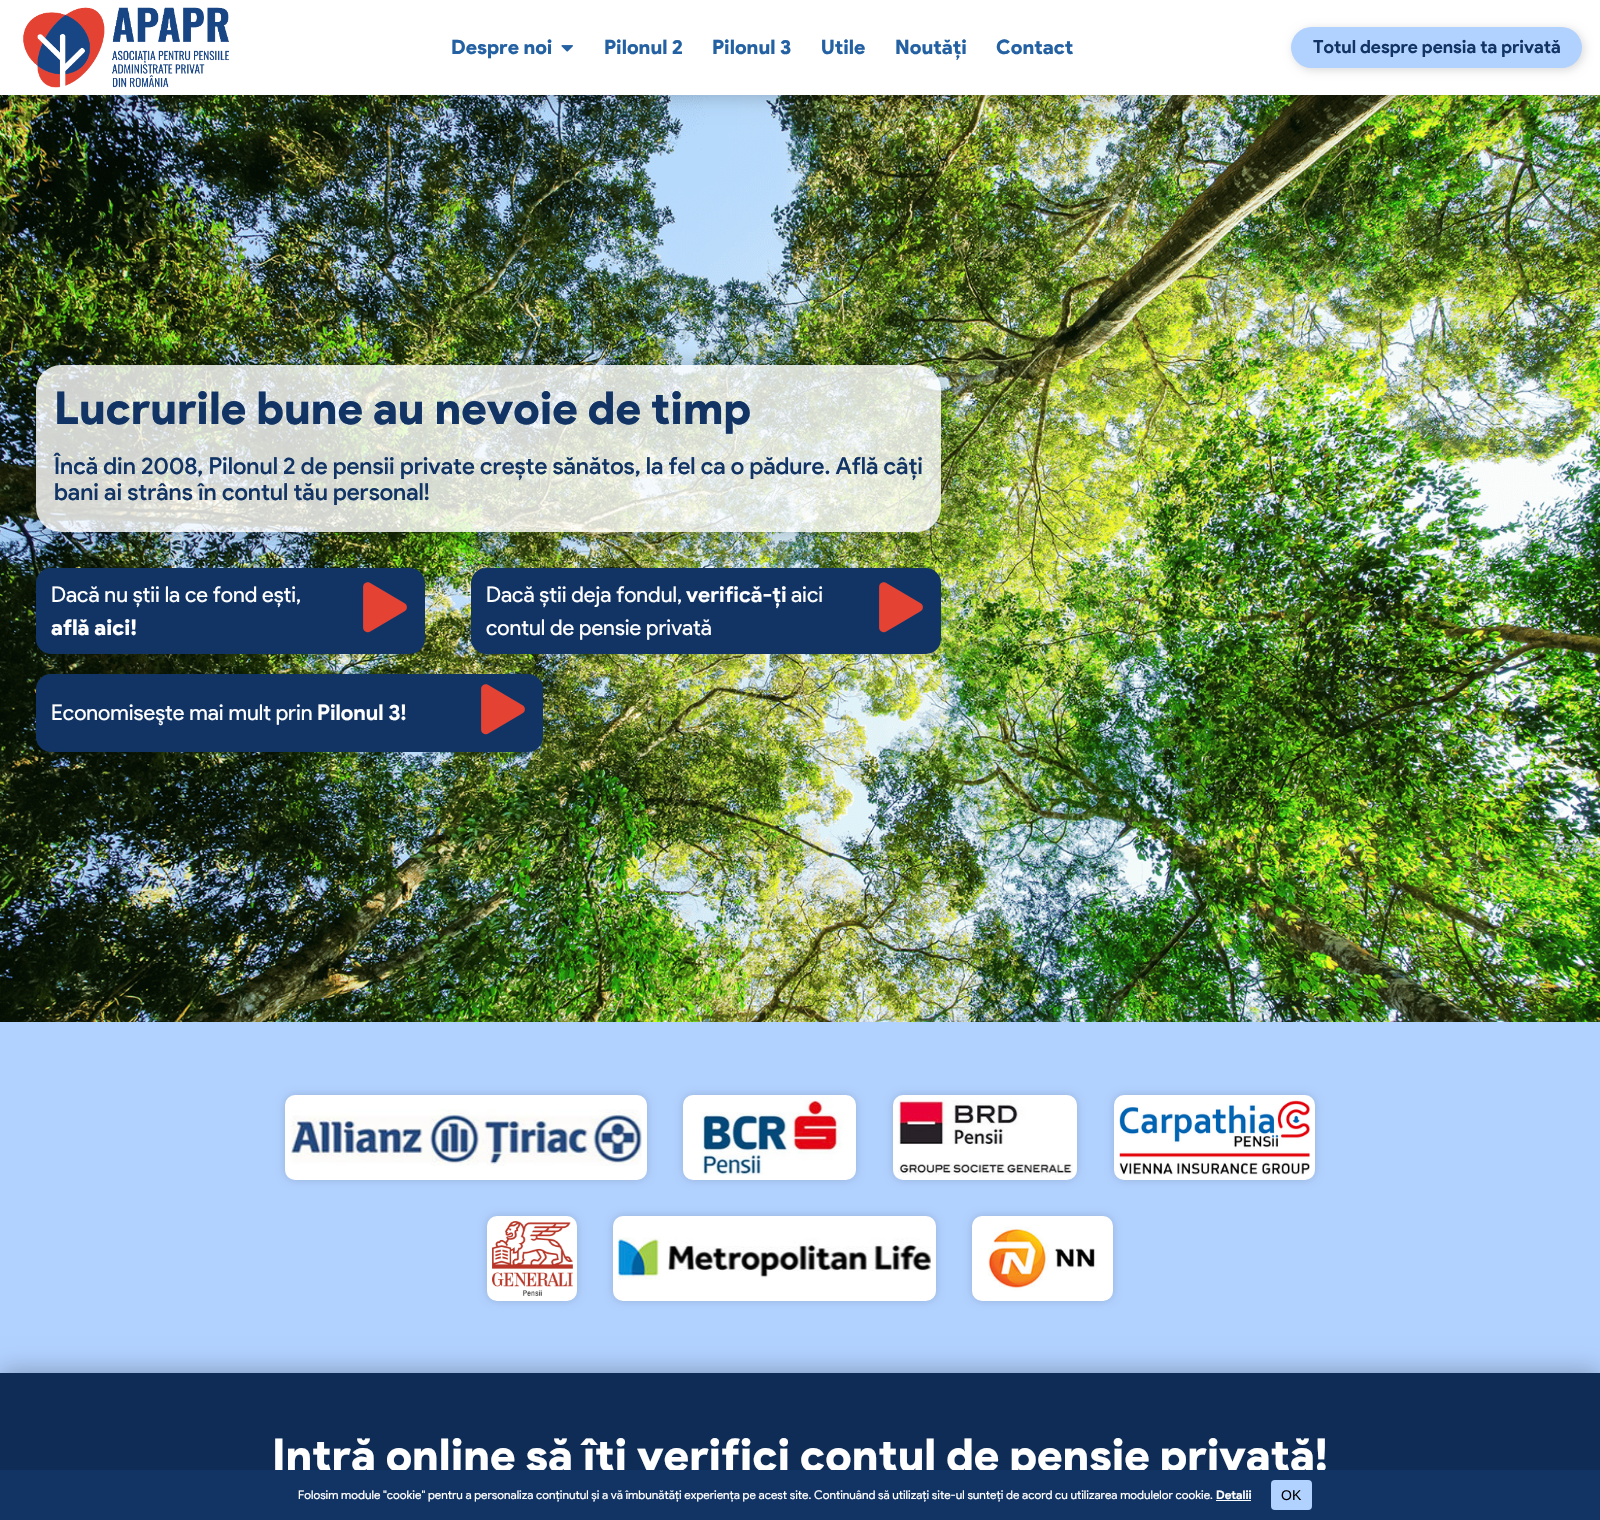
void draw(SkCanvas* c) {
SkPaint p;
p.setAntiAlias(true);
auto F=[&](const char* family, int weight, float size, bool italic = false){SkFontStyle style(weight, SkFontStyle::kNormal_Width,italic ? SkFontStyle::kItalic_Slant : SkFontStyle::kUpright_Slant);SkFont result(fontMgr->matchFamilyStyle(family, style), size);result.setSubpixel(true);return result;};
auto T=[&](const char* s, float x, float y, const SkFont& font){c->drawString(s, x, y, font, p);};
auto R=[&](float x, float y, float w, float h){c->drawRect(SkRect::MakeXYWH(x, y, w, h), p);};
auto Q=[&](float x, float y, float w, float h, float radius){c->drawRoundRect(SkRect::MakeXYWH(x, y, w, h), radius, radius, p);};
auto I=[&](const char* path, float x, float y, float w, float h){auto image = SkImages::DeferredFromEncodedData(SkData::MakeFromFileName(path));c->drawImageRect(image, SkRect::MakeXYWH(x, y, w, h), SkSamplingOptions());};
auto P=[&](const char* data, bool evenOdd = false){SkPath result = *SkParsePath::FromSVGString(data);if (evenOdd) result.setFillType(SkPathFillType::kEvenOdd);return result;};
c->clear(0xffffffff);
I("3.png",0,95,1600,927);
p.setColor(0x40000000);
p.setMaskFilter(SkMaskFilter::MakeBlur(kNormal_SkBlurStyle, 10));
c->drawRect(SkRect::MakeXYWH(0,0,1600,95),p);
p.setMaskFilter(nullptr);
p.setColor(0xffffffff);
R(0,0,1600,95);
I("1.png",23,7,206,81);
auto f1 = F("Product Sans",900,20);
p.setColor(0xff2461a3);
T("Despre noi",451,54,f1);
I("2.png",561,45,12,7);
T("Pilonul 2",604,54,f1);
T("Pilonul 3",712,54,f1);
T("Utile",821,54,f1);
T("Noutăți",895,54,f1);
T("Contact",996,54,f1);
p.setColor(0x26000000);
p.setMaskFilter(SkMaskFilter::MakeBlur(kNormal_SkBlurStyle, 5));
c->drawRoundRect(SkRect::MakeXYWH(1293,29,291,41),20.5,20.5,p);
p.setMaskFilter(nullptr);
p.setColor(0xffb1d1ff);
Q(1291,27,291,41,20.5);
auto f2 = F("Product Sans",700,18.1);
p.setColor(0xff113465);
T("Totul despre pensia ta privată",1313,53,f2);
c->save();
c->clipPath(P("M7 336h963v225h-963zm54 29h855c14 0 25 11 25 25v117c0 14-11 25-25 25h-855c-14 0-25-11-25-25v-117c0-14 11-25 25-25z",true),true);
p.setColor(0x26000000);
p.setMaskFilter(SkMaskFilter::MakeBlur(kNormal_SkBlurStyle, 7.5));
c->drawRoundRect(SkRect::MakeXYWH(31,360,915,177),30,30,p);
p.setMaskFilter(nullptr);
c->restore();
p.setColor(0xcfffffff);
Q(36,365,905,167,25);
auto f3 = F("Product Sans",900,45.25);
p.setColor(0xff113465);
T("Lucrurile bune au nevoie de timp",54,424,f3);
auto f4 = F("Product Sans",500,23.55);
T("Încă din 2008, Pilonul 2 de pensii private crește sănătos, la fel ca o pădure. Află câți",54,474,f4);
T("bani ai strâns în contul tău personal!",54,500,f4);
Q(36,568,389,86,15);
auto f5 = F("Product Sans",400,21.75);
p.setColor(0xffffffff);
T("Dacă nu știi la ce fond ești,",51,602,f5);
auto f6 = F("Product Sans",900,21.75);
T("află aici!",51,635,f6);
I("4.png",363,582,44,51);
p.setColor(0xff113465);
Q(471,568,470,86,15);
p.setColor(0xffffffff);
T("Dacă știi deja fondul,",486,602,f5);
auto f7 = F("Product Sans",700,21.75);
T("verifică-ți",686,602,f7);
T("aici",791,602,f5);
T("contul de pensie privată",486,635,f5);
I("4.png",879,582,44,51);
p.setColor(0xff113465);
Q(36,674,507,78,15);
p.setColor(0xffffffff);
T("Economiseşte mai mult prin",51,720,f5);
T("Pilonul 3!",317,720,f7);
I("4.png",481,684,44,51);
p.setColor(0xffb1d1ff);
R(0,1022,1600,351);
p.setColor(0x26000000);
p.setMaskFilter(SkMaskFilter::MakeBlur(kNormal_SkBlurStyle, 4));
c->drawRoundRect(SkRect::MakeXYWH(285,1095,362,85),10,10,p);
p.setMaskFilter(nullptr);
p.setColor(0xffffffff);
Q(285,1095,362,85,10);
I("5.png",290,1109,352,57);
p.setColor(0x26000000);
p.setMaskFilter(SkMaskFilter::MakeBlur(kNormal_SkBlurStyle, 4));
c->drawRoundRect(SkRect::MakeXYWH(683,1095,173,85),10,10,p);
p.setMaskFilter(nullptr);
p.setColor(0xffffffff);
Q(683,1095,173,85,10);
I("6.png",700,1100,144,75);
p.setColor(0x26000000);
p.setMaskFilter(SkMaskFilter::MakeBlur(kNormal_SkBlurStyle, 4));
c->drawRoundRect(SkRect::MakeXYWH(893,1095,184,85),10,10,p);
p.setMaskFilter(nullptr);
p.setColor(0xffffffff);
Q(893,1095,184,85,10);
I("7.png",898,1100,175,75);
p.setColor(0x26000000);
p.setMaskFilter(SkMaskFilter::MakeBlur(kNormal_SkBlurStyle, 4));
c->drawRoundRect(SkRect::MakeXYWH(1114,1095,201,85),10,10,p);
p.setMaskFilter(nullptr);
p.setColor(0xffffffff);
Q(1114,1095,201,85,10);
I("8.png",1119,1100,191,75);
p.setColor(0x26000000);
p.setMaskFilter(SkMaskFilter::MakeBlur(kNormal_SkBlurStyle, 4));
c->drawRoundRect(SkRect::MakeXYWH(487,1216,90,85),10,10,p);
p.setMaskFilter(nullptr);
p.setColor(0xffffffff);
Q(487,1216,90,85,10);
I("9.png",492,1221,81,75);
p.setColor(0x26000000);
p.setMaskFilter(SkMaskFilter::MakeBlur(kNormal_SkBlurStyle, 4));
c->drawRoundRect(SkRect::MakeXYWH(613,1216,323,85),10,10,p);
p.setMaskFilter(nullptr);
p.setColor(0xffffffff);
Q(613,1216,323,85,10);
I("10.png",618,1237,313,43);
p.setColor(0x26000000);
p.setMaskFilter(SkMaskFilter::MakeBlur(kNormal_SkBlurStyle, 4));
c->drawRoundRect(SkRect::MakeXYWH(972,1216,141,85),10,10,p);
p.setMaskFilter(nullptr);
p.setColor(0xffffffff);
Q(972,1216,141,85,10);
I("11.png",988,1226,109,65);
p.setColor(0x4d000000);
p.setMaskFilter(SkMaskFilter::MakeBlur(kNormal_SkBlurStyle, 12.5));
c->drawRect(SkRect::MakeXYWH(0,1373,1600,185),p);
p.setMaskFilter(nullptr);
p.setColor(0xff0e2c55);
R(0,1373,1600,97);
p.setColor(0xffffffff);
T("Intră online să îți verifici contul de pensie privată!",272,1471,f3);
p.setColor(0xff113465);
R(0,1470,1600,50);
auto f8 = F("Product Sans",400,12);
p.setColor(0xffffffff);
T("Folosim module \"cookie\" pentru a personaliza conținutul și a vă îmbunătăți experiența pe acest site. Continuând să utilizați site-ul sunteți de acord cu utilizarea modulelor cookie.",298,1499,f8);
auto f9 = F("Product Sans",700,12);
T("Detalii",1216,1499,f9);
R(1216,1500,35,1);
p.setColor(0xffb1d1ff);
Q(1271,1480,41,30,4);
auto f10 = F("Liberation Sans",400,14);
p.setColor(0xff000000);
T("OK",1281,1500,f10);
}
